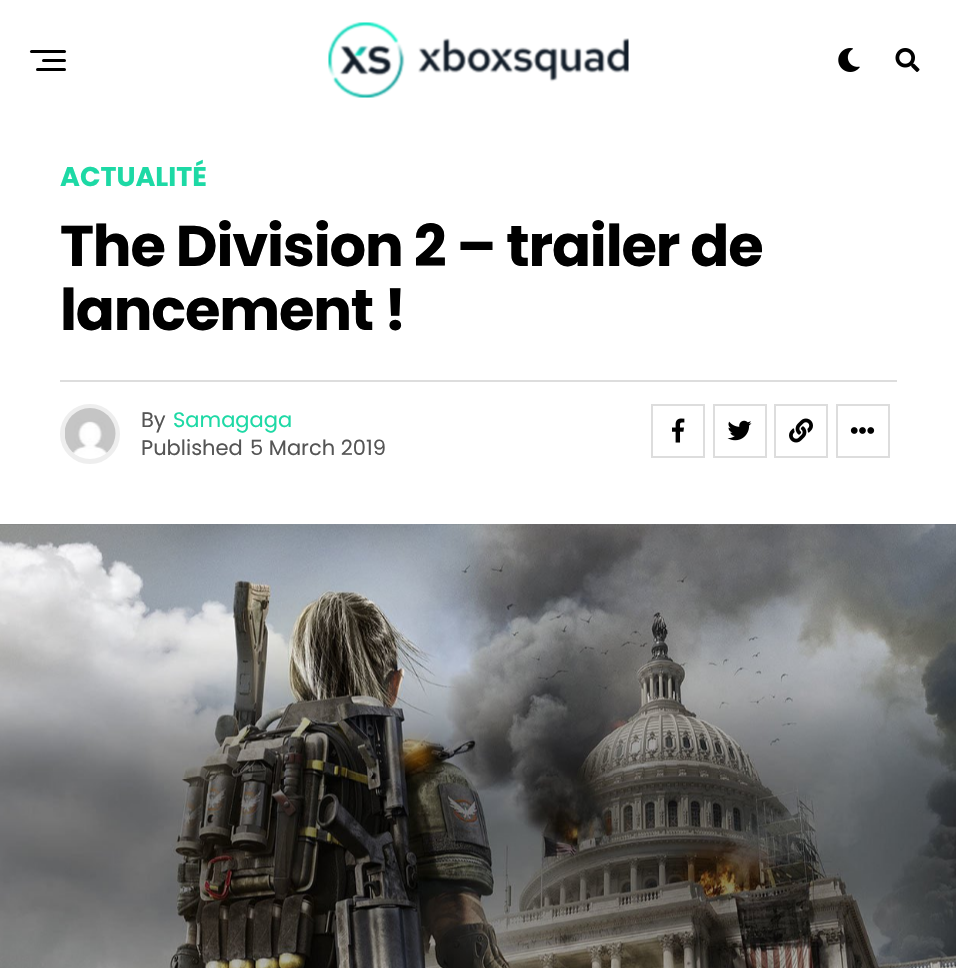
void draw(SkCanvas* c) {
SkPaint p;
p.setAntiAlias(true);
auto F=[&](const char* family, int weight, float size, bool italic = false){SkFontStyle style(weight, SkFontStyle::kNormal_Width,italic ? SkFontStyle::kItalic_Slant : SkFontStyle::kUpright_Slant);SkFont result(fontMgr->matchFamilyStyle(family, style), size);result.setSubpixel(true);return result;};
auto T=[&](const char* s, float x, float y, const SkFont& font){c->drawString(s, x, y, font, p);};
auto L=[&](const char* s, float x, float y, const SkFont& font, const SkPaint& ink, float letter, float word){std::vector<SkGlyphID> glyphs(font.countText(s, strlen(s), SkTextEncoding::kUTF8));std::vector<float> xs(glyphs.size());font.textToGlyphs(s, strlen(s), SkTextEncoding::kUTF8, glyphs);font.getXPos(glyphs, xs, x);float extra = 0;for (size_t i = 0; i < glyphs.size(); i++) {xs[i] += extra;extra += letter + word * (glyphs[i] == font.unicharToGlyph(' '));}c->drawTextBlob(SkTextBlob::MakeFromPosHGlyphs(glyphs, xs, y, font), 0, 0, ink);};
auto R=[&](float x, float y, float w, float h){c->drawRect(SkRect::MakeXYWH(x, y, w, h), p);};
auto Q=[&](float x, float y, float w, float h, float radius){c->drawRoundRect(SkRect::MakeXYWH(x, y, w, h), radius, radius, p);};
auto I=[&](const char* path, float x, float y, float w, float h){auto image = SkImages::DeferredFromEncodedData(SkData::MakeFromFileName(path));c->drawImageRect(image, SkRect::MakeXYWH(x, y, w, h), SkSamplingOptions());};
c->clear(0xffffffff);
p.setColor(0xff000000);
Q(30,50,36,3,1.5);
Q(42,59,24,3,1.5);
Q(36,68,30,3,1.5);
I("1.png",328,22,301,76);
I("2.png",838,48,22,24);
I("3.png",895,48,25,24);
auto f1 = F("Poppins",700,27);
p.setColor(0xff1dd9a5);
T("ACTUALITÉ",60,186,f1);
auto f2 = F("Poppins",700,57.5);
p.setColor(0xff000000);
L("The Division 2 – trailer de",60,266,f2,p,-1.15,0);
L("lancement !",60,330,f2,p,-1.15,0);
p.setColor(0xffdddddd);
R(60,380,837,2);
p.setStroke(true);
p.setStrokeWidth(5);
p.setColor(0xffeeeeee);
c->drawCircle(90,434,27.5,p);
I("4.png",65,408,51,47);
auto f3 = F("Poppins",400,21);
p.setStroke(false);
p.setColor(0xff555555);
T("By",141,427,f3);
p.setColor(0xff1dd9a5);
T("Samagaga",173,427,f3);
p.setColor(0xff555555);
T("Published",141,455,f3);
T("5 March 2019",250,455,f3);
p.setStroke(true);
p.setStrokeWidth(2);
p.setColor(0xffdddddd);
c->drawRect(SkRect::MakeXYWH(652,405,52,52),p);
I("5.png",672,418,13,25);
c->drawRect(SkRect::MakeXYWH(714,405,52,52),p);
I("6.png",727,420,25,21);
c->drawRect(SkRect::MakeXYWH(775,405,52,52),p);
I("7.png",789,418,24,25);
c->drawRect(SkRect::MakeXYWH(837,405,52,52),p);
I("8.png",850,427,25,7);
I("9.png",0,524,956,444);
}
